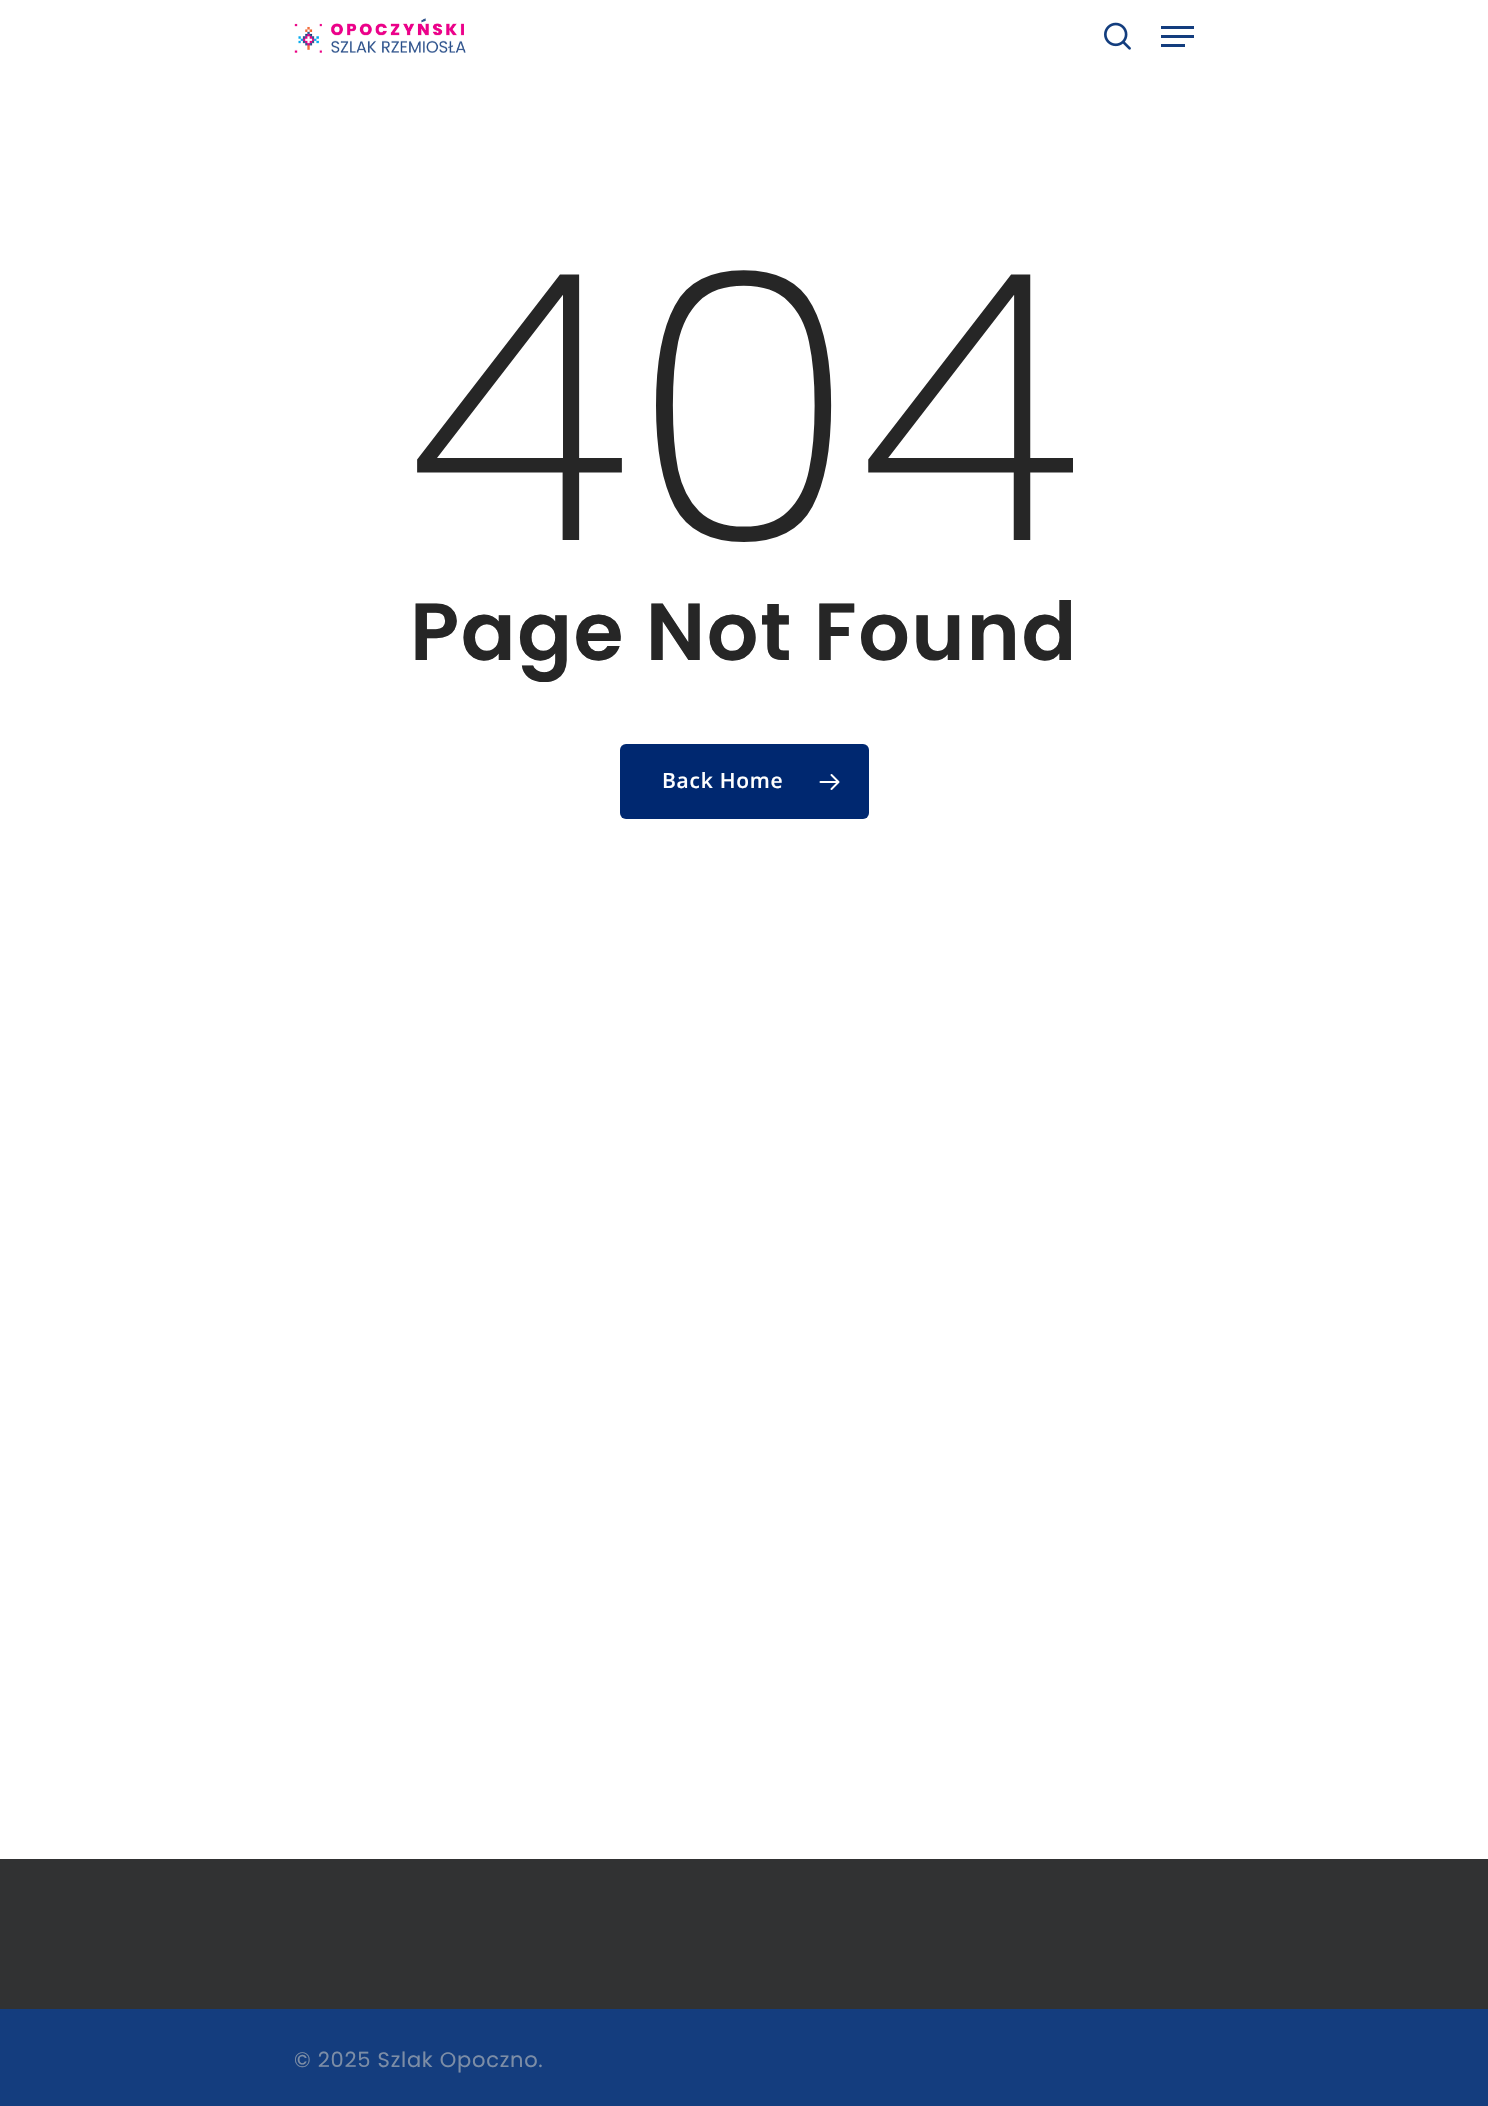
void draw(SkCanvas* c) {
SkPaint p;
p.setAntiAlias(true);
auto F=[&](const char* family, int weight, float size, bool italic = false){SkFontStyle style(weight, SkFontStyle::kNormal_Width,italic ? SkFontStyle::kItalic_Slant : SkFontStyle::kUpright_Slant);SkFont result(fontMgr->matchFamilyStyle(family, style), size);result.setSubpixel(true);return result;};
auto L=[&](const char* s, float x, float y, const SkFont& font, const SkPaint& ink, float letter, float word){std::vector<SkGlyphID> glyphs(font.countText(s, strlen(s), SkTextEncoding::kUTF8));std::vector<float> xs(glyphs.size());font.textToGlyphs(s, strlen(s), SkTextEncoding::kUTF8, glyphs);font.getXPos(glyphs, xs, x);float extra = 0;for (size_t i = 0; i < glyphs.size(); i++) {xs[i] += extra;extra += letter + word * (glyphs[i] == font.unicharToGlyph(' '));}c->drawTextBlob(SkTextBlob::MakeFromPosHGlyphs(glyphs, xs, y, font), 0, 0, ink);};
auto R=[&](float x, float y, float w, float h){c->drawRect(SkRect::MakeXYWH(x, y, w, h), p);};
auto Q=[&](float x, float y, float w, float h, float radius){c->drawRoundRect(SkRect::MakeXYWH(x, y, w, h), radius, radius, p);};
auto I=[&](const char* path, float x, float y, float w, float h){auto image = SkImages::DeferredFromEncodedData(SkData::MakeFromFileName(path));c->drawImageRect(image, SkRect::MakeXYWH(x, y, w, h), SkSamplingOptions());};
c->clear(0xffffffff);
I("1.png",294,18,172,35);
I("2.png",1104,22,27,28);
p.setColor(0xff133d7e);
R(1161,26,33,3);
R(1161,44,24,3);
R(1161,35,33,3);
auto f1 = F("Poppins",200,375);
p.setColor(0xff262626);
L("404",407,540,f1,p,1.5,0);
auto f2 = F("Poppins",600,81);
L("Page Not Found",410,660,f2,p,1.5,0);
p.setColor(0xff002870);
Q(620,744,249,75,6);
auto f3 = F("Open Sans",600,21);
p.setColor(0xffffffff);
L("Back Home",662,788,f3,p,.75,0);
I("3.png",819,774,21,16);
p.setColor(0xff313233);
R(0,1859,1488,150);
p.setColor(0xff143d7e);
R(0,2009,1488,97);
auto f4 = F("Poppins",400,21);
p.setColor(0xff7c8da6);
L("© 2025 Szlak Opoczno.",294,2067,f4,p,.75,0);
}
